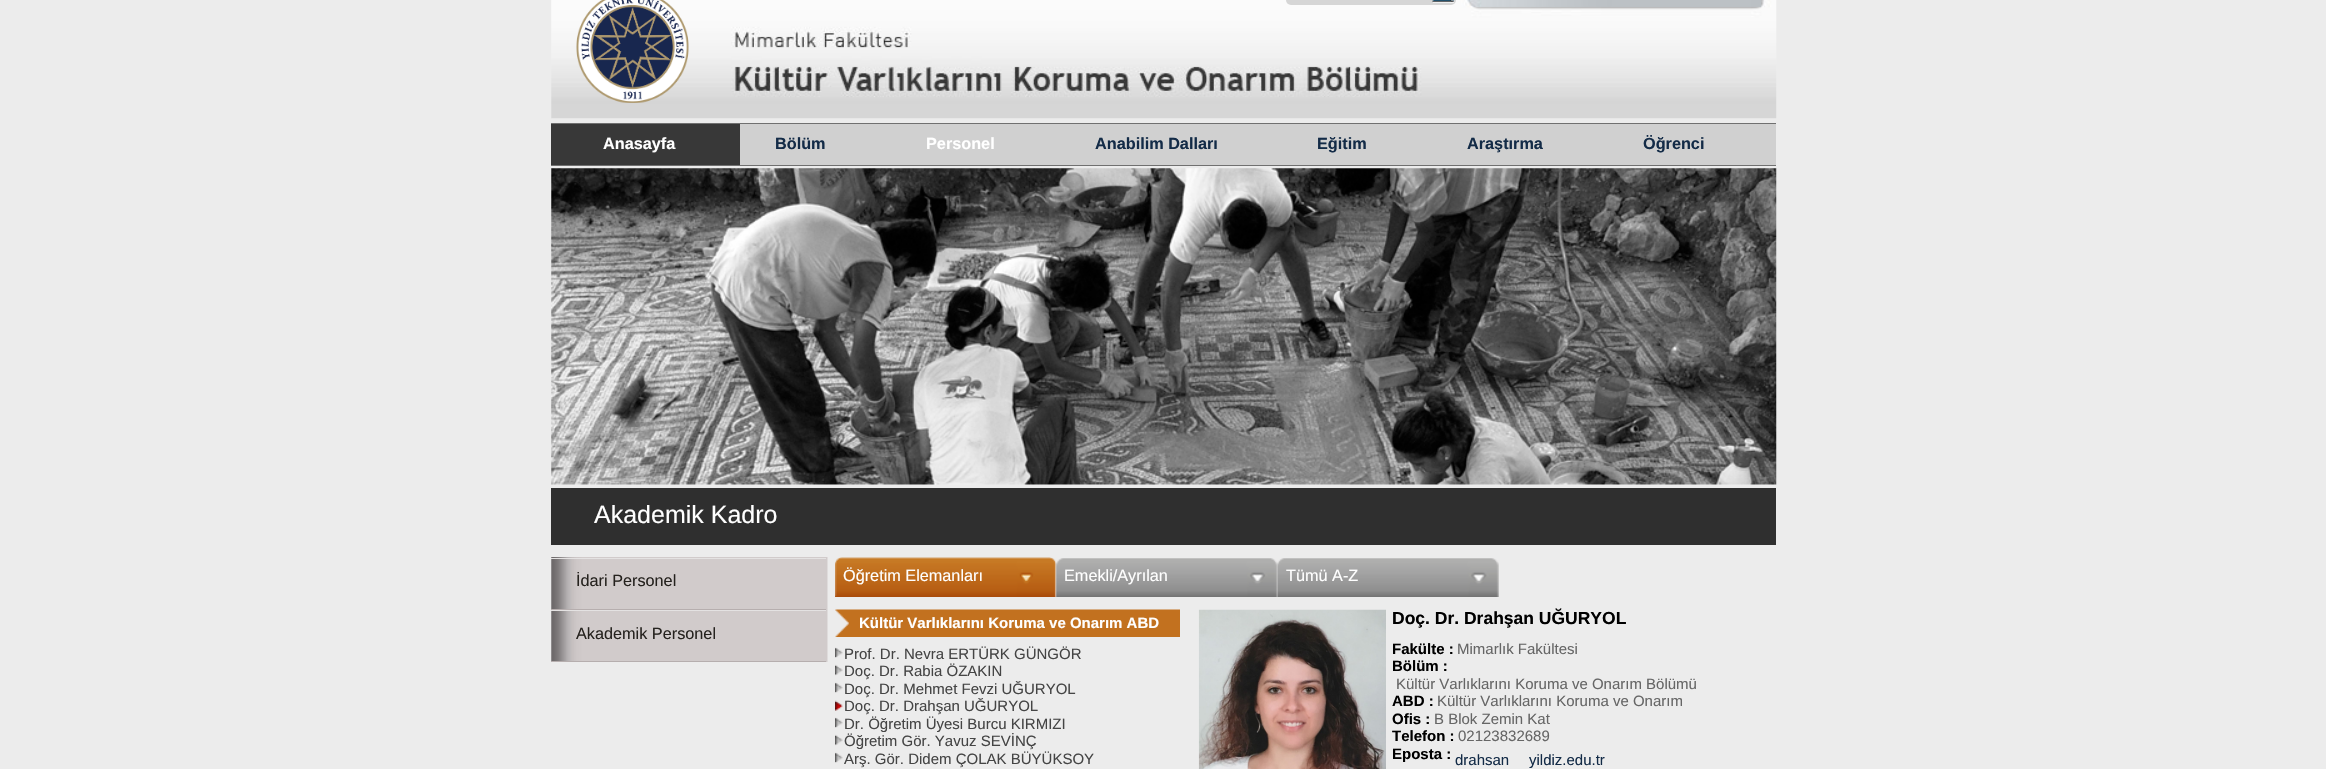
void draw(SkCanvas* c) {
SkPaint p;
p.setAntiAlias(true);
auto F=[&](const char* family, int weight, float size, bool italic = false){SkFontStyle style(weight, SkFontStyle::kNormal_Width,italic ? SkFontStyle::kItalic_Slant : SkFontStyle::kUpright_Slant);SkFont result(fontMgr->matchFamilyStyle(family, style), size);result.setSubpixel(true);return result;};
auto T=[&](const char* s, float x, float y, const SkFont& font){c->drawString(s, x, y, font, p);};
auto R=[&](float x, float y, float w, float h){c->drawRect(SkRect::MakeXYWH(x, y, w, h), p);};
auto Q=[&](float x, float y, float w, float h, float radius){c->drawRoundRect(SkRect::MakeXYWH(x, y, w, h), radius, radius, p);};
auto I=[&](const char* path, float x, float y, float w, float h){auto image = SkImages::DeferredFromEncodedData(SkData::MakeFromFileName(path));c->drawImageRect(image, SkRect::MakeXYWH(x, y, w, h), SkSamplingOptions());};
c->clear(0xffececec);
I("1.png",551,0,1226,119);
I("2.png",576,0,113,103);
p.setColor(0xffd6d6d6);
Q(1286,-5,170,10,5);
p.setColor(0xffefefef);
R(1433,0,21,3);
I("3.png",1432,0,22,2);
p.setColor(0xffd0d0d0);
R(740,124,1036,41);
p.setColor(0xff383838);
R(551,124,189,41);
p.setColor(0xff707070);
R(551,123,1225,1);
R(551,165,1225,1);
auto f1 = F("Liberation Sans",700,16.25);
p.setColor(0xffffffff);
T("Anasayfa",603,149,f1);
p.setColor(0xff132b47);
T("Bölüm",775,149,f1);
p.setColor(0xffffffff);
T("Personel",926,149,f1);
p.setColor(0xff132b47);
T("Anabilim Dalları",1095,149,f1);
T("Eğitim",1317,149,f1);
T("Araştırma",1467,149,f1);
T("Öğrenci",1643,149,f1);
I("4.png",551,168,1226,317);
p.setColor(0xff2f2f2f);
R(551,488,1225,57);
auto f2 = F("Liberation Sans",400,25);
p.setColor(0xffffffff);
T("Akademik Kadro",594,523,f2);
I("5.png",551,557,277,105);
p.setColor(0xffe4e2e2);
R(551,558,275,1);
p.setColor(0xffb6aeae);
R(551,609,275,1);
auto f3 = F("Liberation Sans",400,16.25);
p.setColor(0xff25221e);
T("İdari Personel",576,586,f3);
p.setColor(0xffe4e2e2);
R(551,610,275,1);
p.setColor(0xffb6aeae);
R(551,661,275,1);
p.setColor(0xff25221e);
T("Akademik Personel",576,639,f3);
I("6.png",835,557,222,40);
p.setColor(0xffffffff);
T("Öğretim Elemanları",843,581,f3);
I("7.png",1056,558,222,39);
T("Emekli/Ayrılan",1064,581,f3);
I("8.png",1277,558,222,39);
T("Tümü A-Z",1286,581,f3);
I("9.png",835,609,345,28);
auto f4 = F("Liberation Sans",700,15);
T("Kültür Varlıklarını Koruma ve Onarım ABD",859,628,f4);
I("10.png",835,647,8,11);
auto f5 = F("Liberation Sans",400,15);
p.setColor(0xff454545);
T("Prof. Dr. Nevra ERTÜRK GÜNGÖR",844,659,f5);
I("11.png",835,664,8,12);
T("Doç. Dr. Rabia ÖZAKIN",844,676,f5);
I("10.png",835,682,8,11);
T("Doç. Dr. Mehmet Fevzi UĞURYOL",844,694,f5);
I("12.png",835,700,8,11);
T("Doç. Dr. Drahşan UĞURYOL",844,711,f5);
I("10.png",835,717,8,11);
T("Dr. Öğretim Üyesi Burcu KIRMIZI",844,729,f5);
I("11.png",835,734,8,12);
T("Öğretim Gör. Yavuz SEVİNÇ",844,746,f5);
I("13.png",835,752,8,11);
T("Arş. Gör. Didem ÇOLAK BÜYÜKSOY",844,764,f5);
I("14.png",1198,609,188,160);
auto f6 = F("Liberation Sans",700,17.5);
p.setColor(0xff000000);
T("Doç. Dr. Drahşan UĞURYOL",1392,624,f6);
T("Fakülte :",1392,654,f4);
p.setColor(0xff666666);
T("Mimarlık Fakültesi",1457,654,f5);
p.setColor(0xff000000);
T("Bölüm :",1392,671,f4);
p.setColor(0xff666666);
T("Kültür Varlıklarını Koruma ve Onarım Bölümü",1396,689,f5);
p.setColor(0xff000000);
T("ABD :",1392,706,f4);
p.setColor(0xff666666);
T("Kültür Varlıklarını Koruma ve Onarım",1437,706,f5);
p.setColor(0xff000000);
T("Ofis :",1392,724,f4);
p.setColor(0xff666666);
T("B Blok Zemin Kat",1434,724,f5);
p.setColor(0xff000000);
T("Telefon :",1392,741,f4);
p.setColor(0xff666666);
T("02123832689",1458,741,f5);
p.setColor(0xff000000);
T("Eposta :",1392,759,f4);
p.setColor(0xff132b47);
T("drahsan",1455,765,f5);
T("yildiz.edu.tr",1529,765,f5);
}
